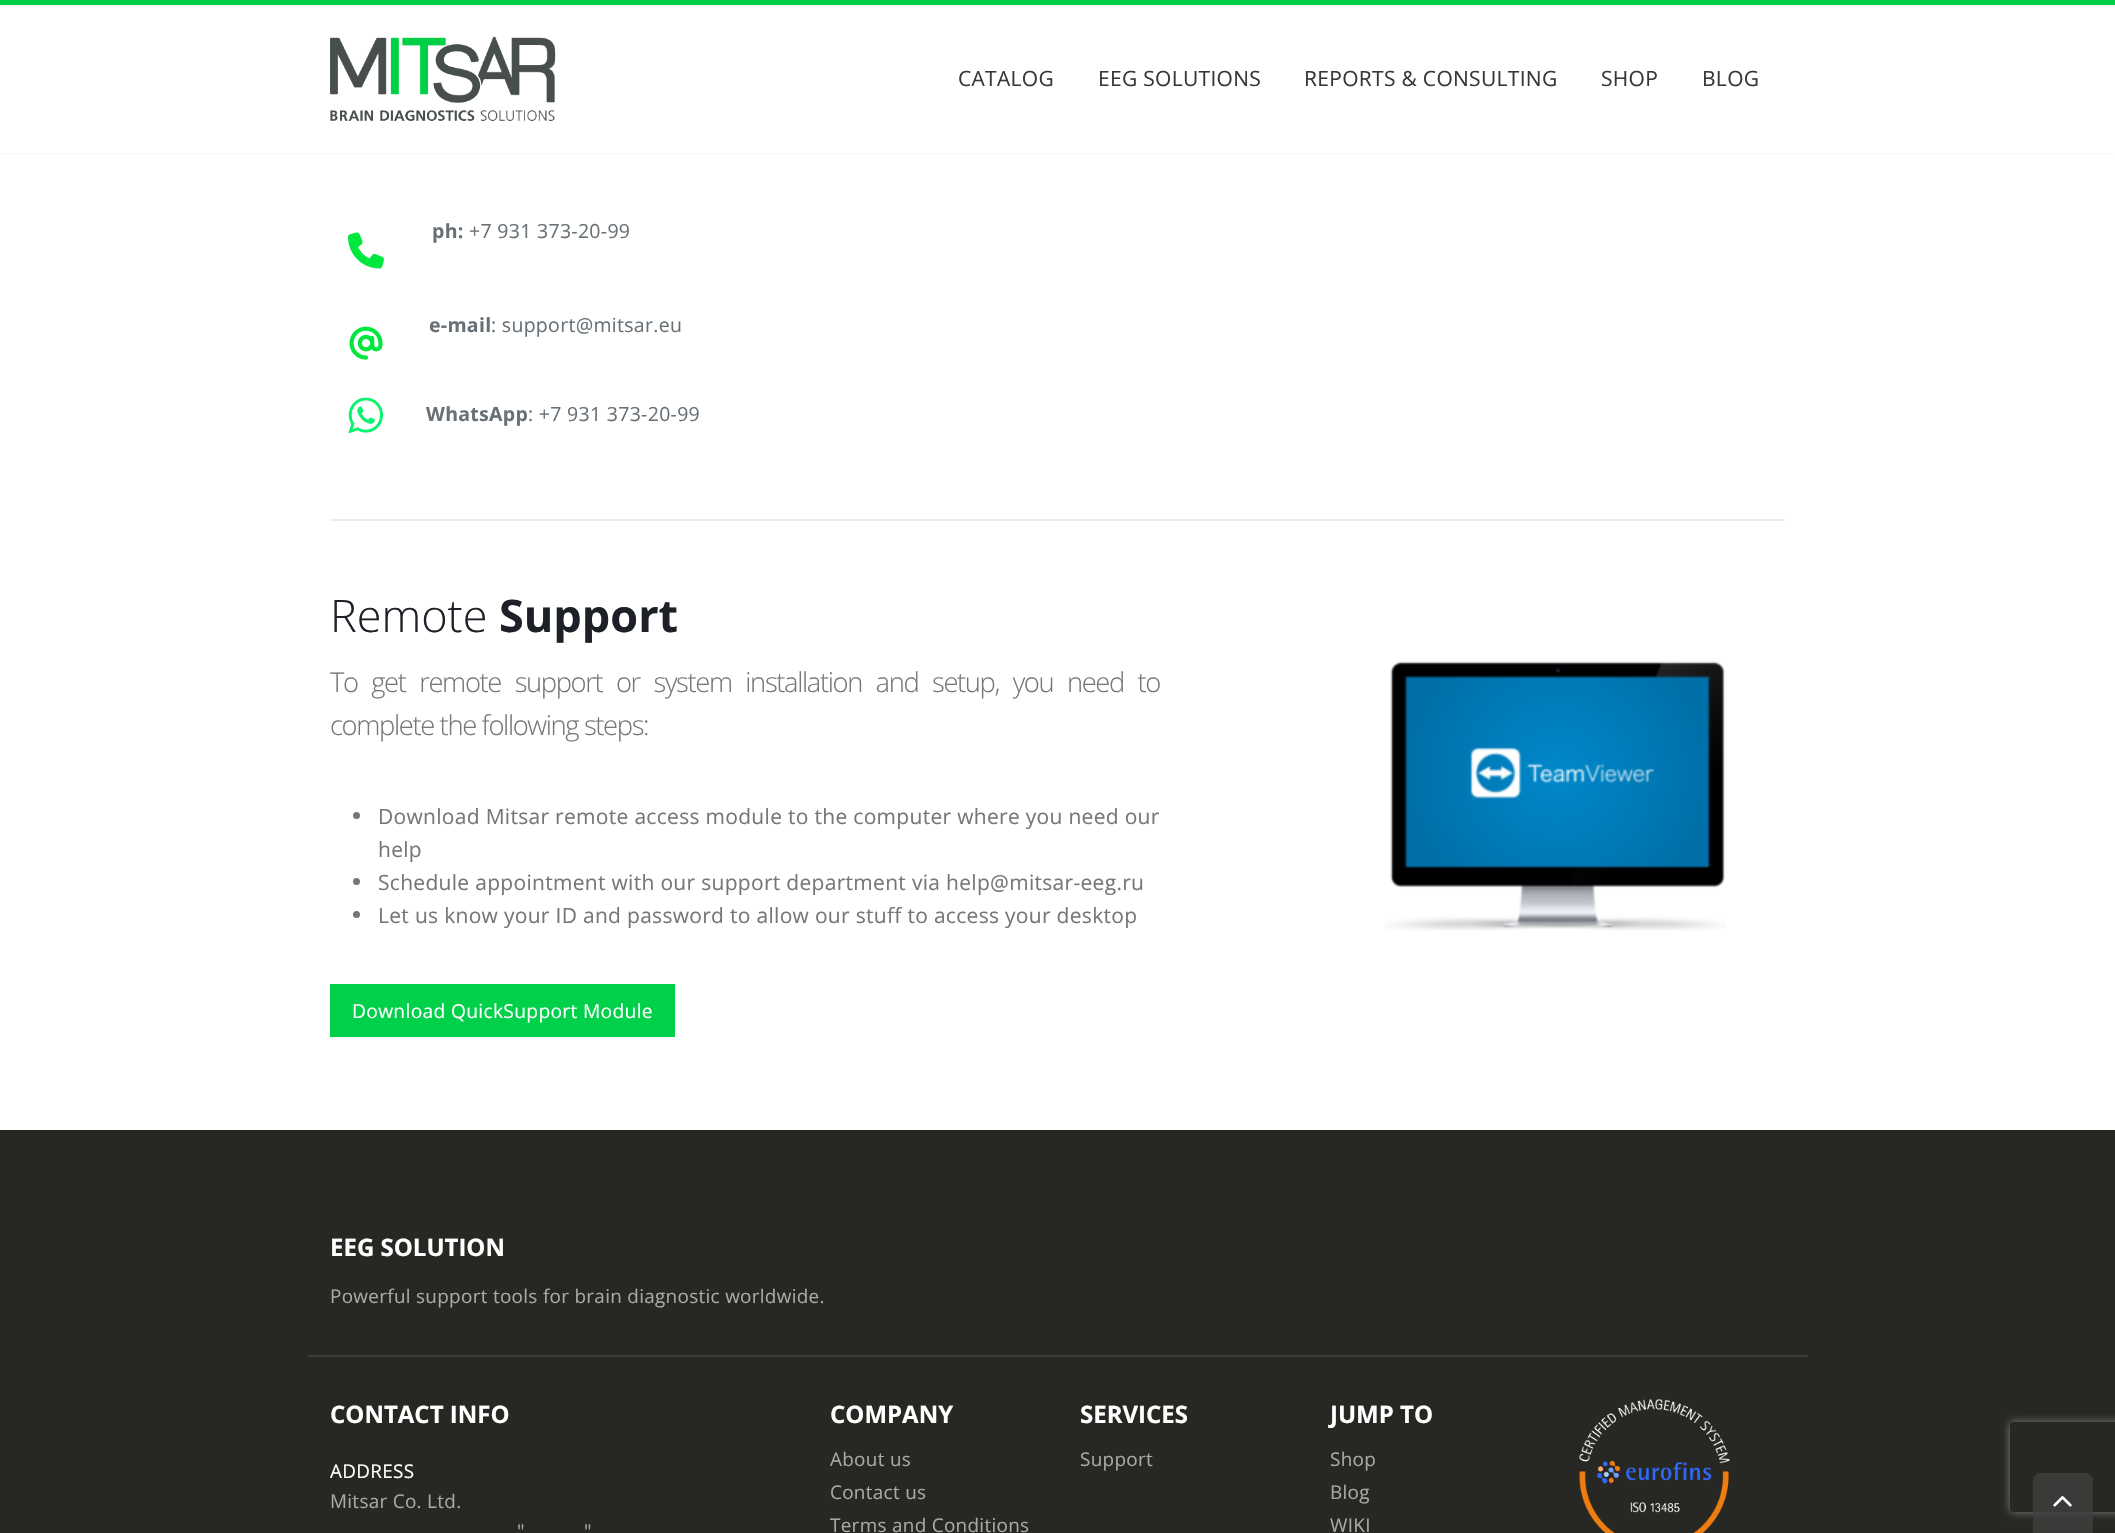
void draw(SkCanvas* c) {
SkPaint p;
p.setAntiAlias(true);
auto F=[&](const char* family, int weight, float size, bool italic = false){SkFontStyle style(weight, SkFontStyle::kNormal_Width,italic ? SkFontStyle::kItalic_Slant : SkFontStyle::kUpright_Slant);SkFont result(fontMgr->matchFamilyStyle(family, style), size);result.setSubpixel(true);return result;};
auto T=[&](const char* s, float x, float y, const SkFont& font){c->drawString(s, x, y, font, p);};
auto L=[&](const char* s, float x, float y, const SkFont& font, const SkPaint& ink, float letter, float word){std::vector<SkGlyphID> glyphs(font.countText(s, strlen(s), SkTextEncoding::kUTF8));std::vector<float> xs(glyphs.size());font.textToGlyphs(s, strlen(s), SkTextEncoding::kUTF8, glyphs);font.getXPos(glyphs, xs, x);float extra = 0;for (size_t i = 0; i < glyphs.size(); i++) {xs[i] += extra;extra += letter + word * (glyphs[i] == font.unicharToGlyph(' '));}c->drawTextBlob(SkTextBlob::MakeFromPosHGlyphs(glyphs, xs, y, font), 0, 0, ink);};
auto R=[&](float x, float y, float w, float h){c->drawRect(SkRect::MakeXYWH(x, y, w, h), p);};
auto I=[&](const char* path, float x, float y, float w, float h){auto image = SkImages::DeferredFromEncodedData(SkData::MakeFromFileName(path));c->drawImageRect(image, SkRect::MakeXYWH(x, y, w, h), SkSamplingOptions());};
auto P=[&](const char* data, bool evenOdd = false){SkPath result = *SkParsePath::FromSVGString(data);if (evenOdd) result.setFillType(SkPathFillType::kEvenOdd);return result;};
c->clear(0xffffffff);
p.setColor(0x0f000000);
p.setMaskFilter(SkMaskFilter::MakeBlur(kNormal_SkBlurStyle, 2));
c->drawRect(SkRect::MakeXYWH(0,0,2115,153),p);
p.setMaskFilter(nullptr);
p.setColor(0xffffffff);
R(0,5,2115,148);
p.setColor(0xff00d045);
R(0,0,2115,5);
I("1.png",330,36,226,85);
auto f1 = F("Open Sans",400,21);
p.setColor(0xff383838);
L("CATALOG",958,86,f1,p,.3,0);
L("EEG SOLUTIONS",1098,86,f1,p,.3,0);
L("REPORTS & CONSULTING",1304,86,f1,p,.3,0);
L("SHOP",1601,86,f1,p,.3,0);
L("BLOG",1702,86,f1,p,.3,0);
I("2.png",348,232,36,37);
auto f2 = F("Open Sans",700,19.5);
p.setColor(0xff687176);
L("ph:",432,238,f2,p,.3,0);
auto f3 = F("Open Sans",400,19.5);
L("+7 931 373-20-99",469,238,f3,p,.3,0);
I("3.png",349,326,34,34);
L("e-mail",429,332,f2,p,.3,0);
L(": support@mitsar.eu",491,332,f3,p,.3,0);
I("4.png",348,397,36,37);
L("WhatsApp",426,421,f2,p,.3,0);
L(": +7 931 373-20-99",528,421,f3,p,.3,0);
p.setColor(0xffebebeb);
R(330,519,1455,2);
auto f4 = F("Open Sans",300,45);
p.setColor(0xff1d2127);
T("Remote",330,632,f4);
auto f5 = F("Open Sans",700,45);
T("Support",499,632,f5);
auto f6 = F("Open Sans",300,27.35);
p.setColor(0xff777777);
L("To get remote support or system installation and setup, you need to",330,692,f6,p,-1.37,7.9);
L("complete the following steps:",330,735,f6,p,-1.37,0);
c->drawCircle(356.5,815.5,3.5,p);
L("Download Mitsar remote access module to the computer where you need our",378,824,f1,p,.3,0);
L("help",378,857,f1,p,.3,0);
c->drawCircle(356.5,881.5,3.5,p);
L("Schedule appointment with our support department via help@mitsar-eeg.ru",378,890,f1,p,.3,0);
c->drawCircle(356.5,914.5,3.5,p);
L("Let us know your ID and password to allow our stuff to access your desktop",378,923,f1,p,.3,0);
p.setColor(0xff00d04a);
R(330,984,345,53);
auto f7 = F("Open Sans",400,19.25);
p.setColor(0xffffffff);
L("Download QuickSupport Module",352,1018,f7,p,.3,0);
I("5.png",1385,661,341,270);
p.setColor(0xff272723);
R(0,1130,2115,403);
p.setColor(0xff3d3d38);
R(308,1355,1500,2);
auto f8 = F("Open Sans",700,24);
p.setColor(0xffffffff);
T("EEG SOLUTION",330,1256,f8);
auto f9 = F("Open Sans",400,18.9);
p.setColor(0xffa8a8a8);
L("Powerful support tools for brain diagnostic worldwide.",330,1303,f9,p,.3,0);
p.setColor(0xffffffff);
T("CONTACT INFO",330,1423,f8);
L("ADDRESS",330,1478,f9,p,.3,0);
p.setColor(0xffa8a8a8);
L("Mitsar Co. Ltd.",330,1508,f9,p,.3,0);
L("\"",517,1538,f9,p,.3,0);
L("\"",584,1538,f9,p,.3,0);
p.setColor(0xffffffff);
T("COMPANY",830,1423,f8);
p.setColor(0xffa8a8a8);
L("About us",830,1466,f9,p,.3,0);
L("Contact us",830,1499,f9,p,.3,0);
L("Terms and Conditions",830,1532,f9,p,.3,0);
p.setColor(0xffffffff);
T("SERVICES",1080,1423,f8);
p.setColor(0xffa8a8a8);
L("Support",1080,1466,f9,p,.3,0);
p.setColor(0xffffffff);
T("JUMP TO",1330,1423,f8);
p.setColor(0xffa8a8a8);
L("Shop",1330,1466,f9,p,.3,0);
L("Blog",1330,1499,f9,p,.3,0);
L("WIKI",1330,1532,f9,p,.3,0);
I("6.png",1579,1399,151,134);
c->save();
c->clipPath(P("M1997 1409h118v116h-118zm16 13h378c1.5 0 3 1.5 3 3v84c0 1.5-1.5 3-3 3h-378c-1.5 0-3-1.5-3-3v-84c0-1.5 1.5-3 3-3z",true),true);
p.setColor(0xff808080);
p.setMaskFilter(SkMaskFilter::MakeBlur(kNormal_SkBlurStyle, 4));
c->drawRoundRect(SkRect::MakeXYWH(2010,1422,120,90),3,3,p);
p.setMaskFilter(nullptr);
c->restore();
p.setColor(0xbf404040);
c->drawPath(P("M2041 1473h44c4.5 0 8 3.5 8 8v52h-60v-52c0-4.5 3.5-8 8-8z"),p);
I("7.png",2053,1496,19,11);
}
